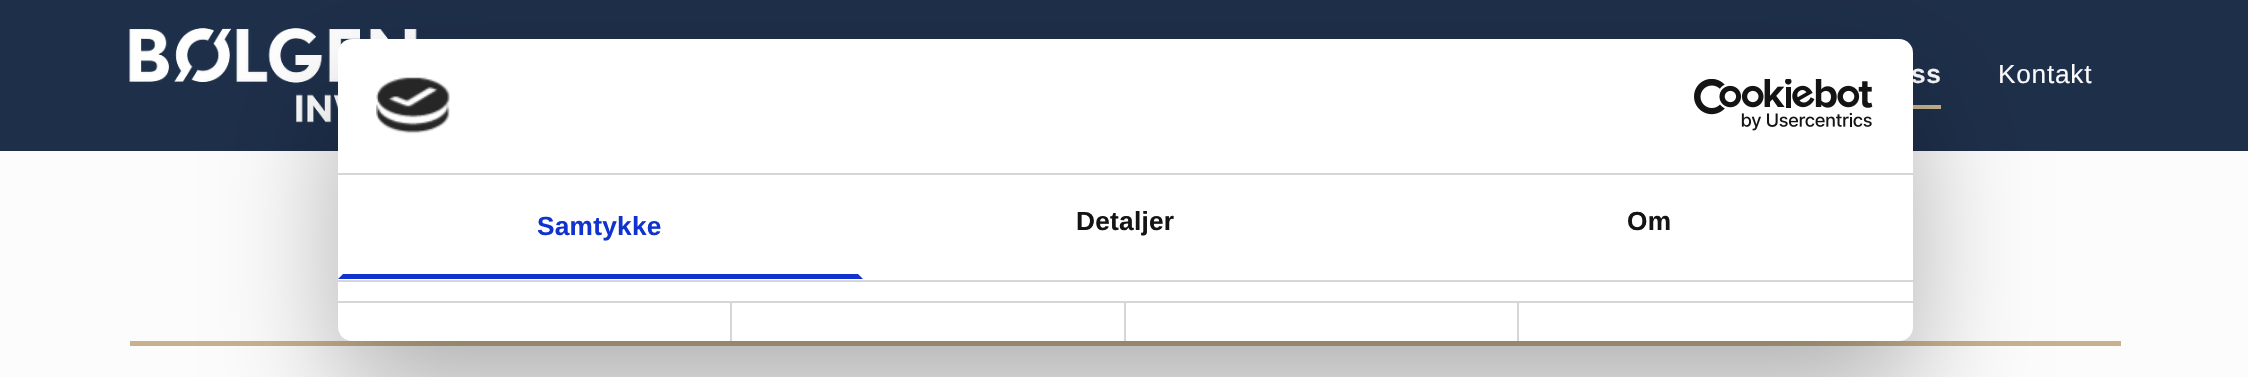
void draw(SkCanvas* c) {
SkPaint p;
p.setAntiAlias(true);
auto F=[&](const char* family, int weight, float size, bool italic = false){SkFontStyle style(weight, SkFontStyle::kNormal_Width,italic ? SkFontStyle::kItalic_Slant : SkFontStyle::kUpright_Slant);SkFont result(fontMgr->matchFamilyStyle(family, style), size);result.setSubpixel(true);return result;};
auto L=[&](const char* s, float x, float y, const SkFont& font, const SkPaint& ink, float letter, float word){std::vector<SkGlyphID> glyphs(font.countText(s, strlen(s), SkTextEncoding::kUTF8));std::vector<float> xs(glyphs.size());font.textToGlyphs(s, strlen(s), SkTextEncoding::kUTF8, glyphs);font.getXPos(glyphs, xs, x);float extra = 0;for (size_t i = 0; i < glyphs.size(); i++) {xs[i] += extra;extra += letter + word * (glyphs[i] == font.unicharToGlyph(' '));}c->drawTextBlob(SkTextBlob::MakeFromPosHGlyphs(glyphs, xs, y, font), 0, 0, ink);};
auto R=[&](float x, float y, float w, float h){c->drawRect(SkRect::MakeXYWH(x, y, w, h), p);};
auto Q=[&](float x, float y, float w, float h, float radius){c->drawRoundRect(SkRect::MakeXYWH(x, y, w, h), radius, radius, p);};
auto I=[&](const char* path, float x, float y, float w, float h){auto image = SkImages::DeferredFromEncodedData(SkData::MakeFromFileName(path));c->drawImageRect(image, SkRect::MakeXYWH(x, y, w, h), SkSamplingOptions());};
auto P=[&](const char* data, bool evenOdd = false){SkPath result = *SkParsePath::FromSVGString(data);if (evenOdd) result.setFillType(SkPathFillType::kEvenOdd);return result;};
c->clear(0xff1e2f4a);
I("1.png",129,28,288,95);
p.setColor(0xffc8b28e);
R(1913,105,28,4);
auto f1 = F("Liberation Sans",700,26.25);
p.setColor(0xfffcfcfc);
L("ss",1911,83,f1,p,.75,0);
auto f2 = F("Liberation Sans",400,26.25);
L("Kontakt",1998,83,f2,p,.75,0);
R(0,151,2248,226);
p.setColor(0xffc8b28e);
R(130,341,1991,5);
p.setColor(0x4d000000);
p.setMaskFilter(SkMaskFilter::MakeBlur(kNormal_SkBlurStyle, 59.5));
c->drawRoundRect(SkRect::MakeXYWH(338,95,1575,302),14,14,p);
p.setMaskFilter(nullptr);
p.setColor(0xffffffff);
Q(338,39,1575,302,14);
p.setColor(0xffd6d6d6);
R(338,173,1575,2);
I("2.png",376,77,74,57);
I("3.png",1694,79,179,52);
R(338,280,1575,2);
p.setColor(0xff1032cf);
c->drawPath(P("M863 279h-525l5-5h515z"),p);
L("Samtykke",537,235,f1,p,.25,0);
p.setColor(0xff141414);
L("Detaljer",1076,230,f1,p,.25,0);
L("Om",1627,230,f1,p,.25,0);
p.setColor(0xffd6d6d6);
R(338,301,1575,2);
R(730,303,2,38);
R(1124,303,2,38);
R(1517,303,2,38);
}
